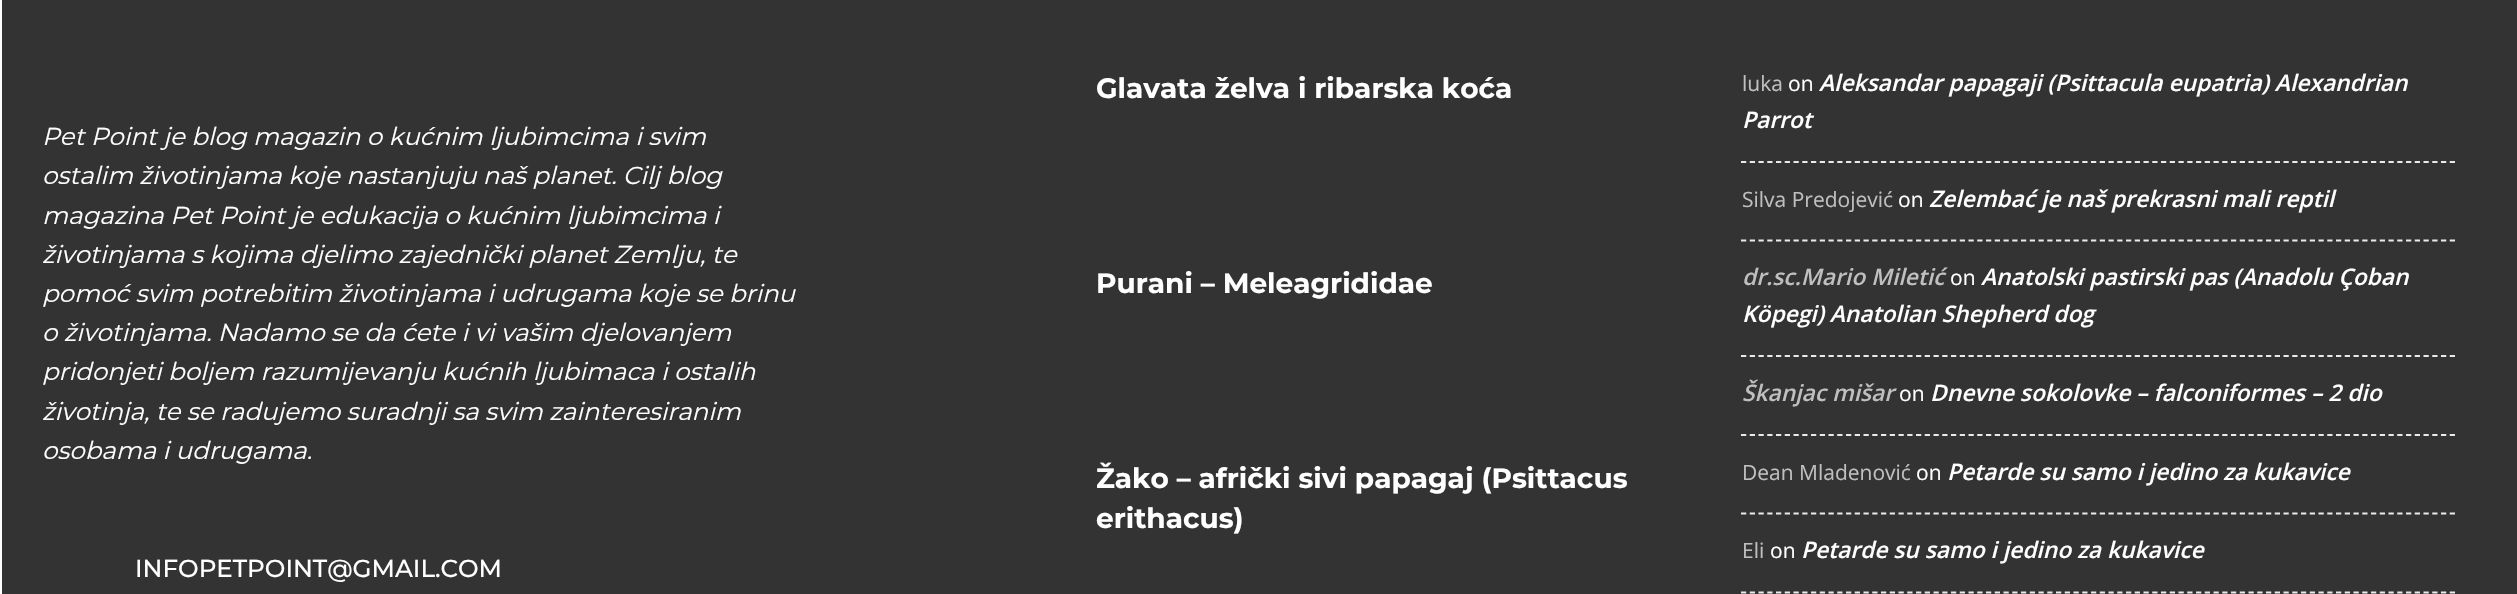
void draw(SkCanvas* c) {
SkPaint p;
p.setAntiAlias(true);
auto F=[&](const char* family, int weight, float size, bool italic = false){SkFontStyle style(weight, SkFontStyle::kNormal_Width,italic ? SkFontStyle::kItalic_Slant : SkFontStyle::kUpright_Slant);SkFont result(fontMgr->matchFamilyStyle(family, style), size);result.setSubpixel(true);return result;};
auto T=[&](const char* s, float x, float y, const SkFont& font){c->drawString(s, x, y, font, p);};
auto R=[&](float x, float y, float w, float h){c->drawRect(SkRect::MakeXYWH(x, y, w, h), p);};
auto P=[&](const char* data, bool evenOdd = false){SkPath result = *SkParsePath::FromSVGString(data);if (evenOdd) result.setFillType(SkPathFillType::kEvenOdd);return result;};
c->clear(0xffffffff);
p.setColor(0xff333333);
R(2,0,2515,594);
auto f1 = F("Montserrat",400,24.5,true);
p.setColor(0xffffffff);
T("Pet Point je blog magazin o kućnim ljubimcima i svim",42,145,f1);
T("ostalim životinjama koje nastanjuju naš planet. Cilj blog",42,184,f1);
T("magazina Pet Point je edukacija o kućnim ljubimcima i",42,224,f1);
T("životinjama s kojima djelimo zajednički planet Zemlju, te",42,263,f1);
T("pomoć svim potrebitim životinjama i udrugama koje se brinu",42,302,f1);
T("o životinjama. Nadamo se da ćete i vi vašim djelovanjem",42,341,f1);
T("pridonjeti boljem razumijevanju kućnih ljubimaca i ostalih",42,380,f1);
T("životinja, te se radujemo suradnji sa svim zainteresiranim",42,420,f1);
T("osobama i udrugama.",42,459,f1);
auto f2 = F("Montserrat",500,24.5);
T("INFOPETPOINT@GMAIL.COM",135,577,f2);
auto f3 = F("Montserrat",700,28);
T("Glavata želva i ribarska koća",1096,98,f3);
T("Purani – Meleagrididae",1096,293,f3);
T("Žako – afrički sivi papagaj (Psittacus",1096,488,f3);
T("erithacus)",1096,528,f3);
p.setStroke(true);
p.setStrokeWidth(1.8);
p.setColor(0xffeaeaea);
p.setPathEffect(SkDashPathEffect::Make({{5.25f,3.5f}}, 0));
c->drawPath(P("M1741 162h714"),p);
p.setPathEffect(nullptr);
auto f4 = F("Open Sans",400,21);
p.setStroke(false);
p.setColor(0xffbfbfbf);
T("luka",1742,91,f4);
p.setColor(0xffffffff);
T("on",1788,91,f4);
auto f5 = F("Open Sans",600,22.75,true);
T("Aleksandar papagaji (Psittacula eupatria) Alexandrian",1819,91,f5);
T("Parrot",1742,128,f5);
p.setStroke(true);
p.setColor(0xffeaeaea);
p.setPathEffect(SkDashPathEffect::Make({{5.25f,3.5f}}, 0));
c->drawPath(P("M1741 240.5h714"),p);
p.setPathEffect(nullptr);
p.setStroke(false);
p.setColor(0xffbfbfbf);
T("Silva Predojević",1742,207,f4);
p.setColor(0xffffffff);
T("on",1898,207,f4);
T("Zelembać je naš prekrasni mali reptil",1929,207,f5);
p.setStroke(true);
p.setColor(0xffeaeaea);
p.setPathEffect(SkDashPathEffect::Make({{5.25f,3.5f}}, 0));
c->drawPath(P("M1741 356h714"),p);
p.setPathEffect(nullptr);
p.setStroke(false);
p.setColor(0xffbfbfbf);
T("dr.sc.Mario Miletić",1742,285,f5);
p.setColor(0xffffffff);
T("on",1950,285,f4);
T("Anatolski pastirski pas (Anadolu Çoban",1981,285,f5);
T("Köpegi) Anatolian Shepherd dog",1742,322,f5);
p.setStroke(true);
p.setColor(0xffeaeaea);
p.setPathEffect(SkDashPathEffect::Make({{5.25f,3.5f}}, 0));
c->drawPath(P("M1741 435h714"),p);
p.setPathEffect(nullptr);
p.setStroke(false);
p.setColor(0xffbfbfbf);
T("Škanjac mišar",1742,401,f5);
p.setColor(0xffffffff);
T("on",1899,401,f4);
T("Dnevne sokolovke – falconiformes – 2 dio",1930,401,f5);
p.setStroke(true);
p.setColor(0xffeaeaea);
p.setPathEffect(SkDashPathEffect::Make({{5.25f,3.5f}}, 0));
c->drawPath(P("M1741 513.5h714"),p);
p.setPathEffect(nullptr);
p.setStroke(false);
p.setColor(0xffbfbfbf);
T("Dean Mladenović",1742,480,f4);
p.setColor(0xffffffff);
T("on",1916,480,f4);
T("Petarde su samo i jedino za kukavice",1947,480,f5);
p.setStroke(true);
p.setColor(0xffeaeaea);
p.setPathEffect(SkDashPathEffect::Make({{5.25f,3.5f}}, 0));
c->drawPath(P("M1741 592.5h714"),p);
p.setPathEffect(nullptr);
p.setStroke(false);
p.setColor(0xffbfbfbf);
T("Eli",1742,558,f4);
p.setColor(0xffffffff);
T("on",1770,558,f4);
T("Petarde su samo i jedino za kukavice",1801,558,f5);
}
